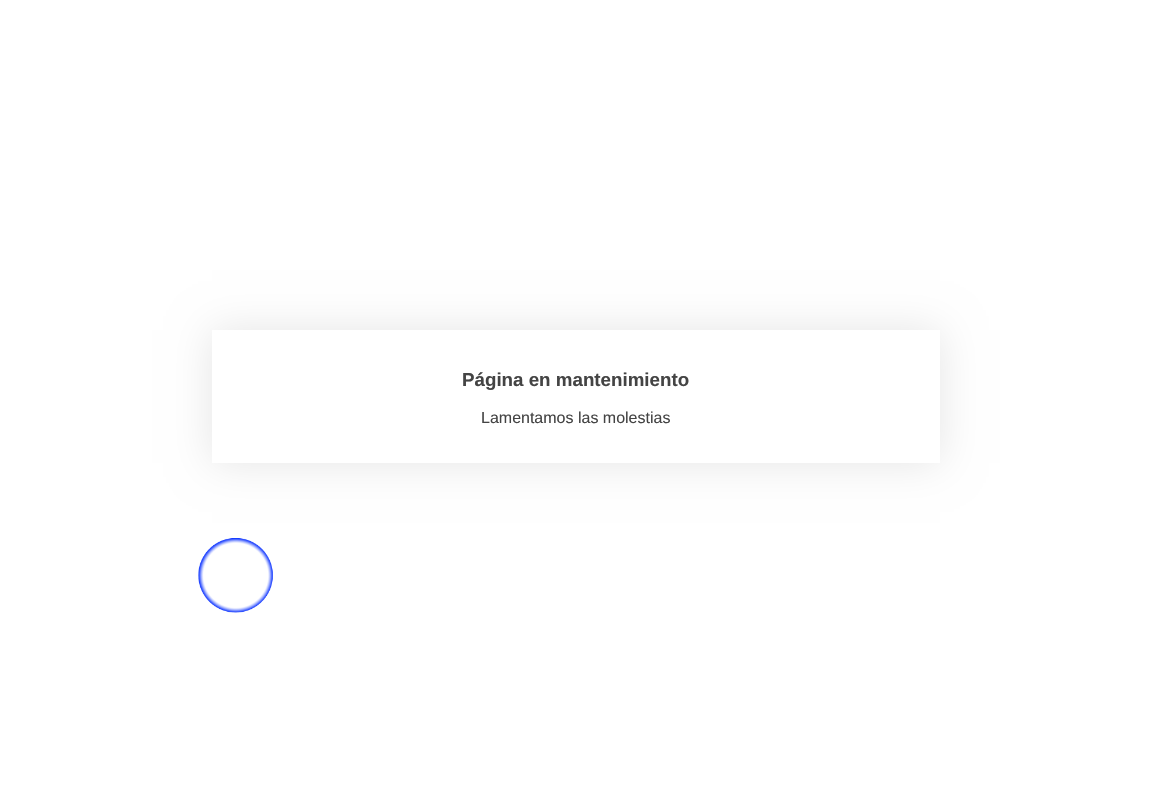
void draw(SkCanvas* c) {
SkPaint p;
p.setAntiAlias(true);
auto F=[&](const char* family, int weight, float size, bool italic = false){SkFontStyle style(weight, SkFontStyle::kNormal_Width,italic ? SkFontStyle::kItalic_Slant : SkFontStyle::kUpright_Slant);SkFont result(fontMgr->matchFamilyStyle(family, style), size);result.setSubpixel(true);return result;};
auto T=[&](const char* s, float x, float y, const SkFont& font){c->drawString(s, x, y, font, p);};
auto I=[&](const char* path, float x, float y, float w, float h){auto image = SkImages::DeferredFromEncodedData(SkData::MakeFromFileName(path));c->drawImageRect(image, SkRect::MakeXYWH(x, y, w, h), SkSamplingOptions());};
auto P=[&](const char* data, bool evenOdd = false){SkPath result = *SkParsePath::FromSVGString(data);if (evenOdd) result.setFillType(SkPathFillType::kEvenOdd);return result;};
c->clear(0xffffffff);
c->save();
c->clipPath(P("M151 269h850v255h-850zm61 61h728v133h-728z",true),true);
p.setColor(0x1a000000);
p.setMaskFilter(SkMaskFilter::MakeBlur(kNormal_SkBlurStyle, 20));
c->drawRect(SkRect::MakeXYWH(212,330,728,133),p);
p.setMaskFilter(nullptr);
c->restore();
auto f1 = F("Liberation Sans",700,18.75);
p.setColor(0xff444444);
T("Página en mantenimiento",462,386,f1);
auto f2 = F("Liberation Sans",400,16);
T("Lamentamos las molestias",481,423,f2);
I("1.png",198,538,75,75);
}
